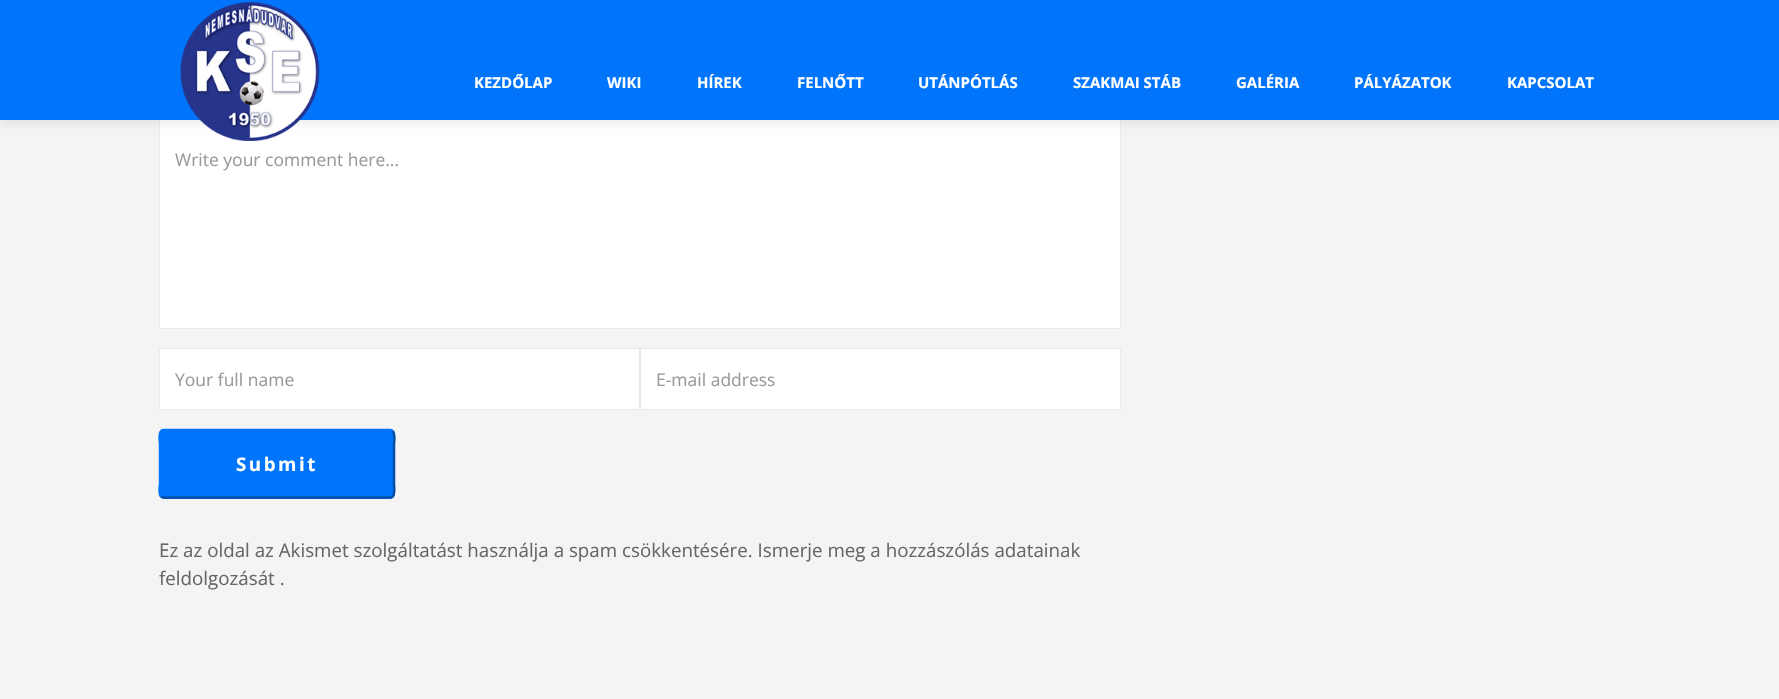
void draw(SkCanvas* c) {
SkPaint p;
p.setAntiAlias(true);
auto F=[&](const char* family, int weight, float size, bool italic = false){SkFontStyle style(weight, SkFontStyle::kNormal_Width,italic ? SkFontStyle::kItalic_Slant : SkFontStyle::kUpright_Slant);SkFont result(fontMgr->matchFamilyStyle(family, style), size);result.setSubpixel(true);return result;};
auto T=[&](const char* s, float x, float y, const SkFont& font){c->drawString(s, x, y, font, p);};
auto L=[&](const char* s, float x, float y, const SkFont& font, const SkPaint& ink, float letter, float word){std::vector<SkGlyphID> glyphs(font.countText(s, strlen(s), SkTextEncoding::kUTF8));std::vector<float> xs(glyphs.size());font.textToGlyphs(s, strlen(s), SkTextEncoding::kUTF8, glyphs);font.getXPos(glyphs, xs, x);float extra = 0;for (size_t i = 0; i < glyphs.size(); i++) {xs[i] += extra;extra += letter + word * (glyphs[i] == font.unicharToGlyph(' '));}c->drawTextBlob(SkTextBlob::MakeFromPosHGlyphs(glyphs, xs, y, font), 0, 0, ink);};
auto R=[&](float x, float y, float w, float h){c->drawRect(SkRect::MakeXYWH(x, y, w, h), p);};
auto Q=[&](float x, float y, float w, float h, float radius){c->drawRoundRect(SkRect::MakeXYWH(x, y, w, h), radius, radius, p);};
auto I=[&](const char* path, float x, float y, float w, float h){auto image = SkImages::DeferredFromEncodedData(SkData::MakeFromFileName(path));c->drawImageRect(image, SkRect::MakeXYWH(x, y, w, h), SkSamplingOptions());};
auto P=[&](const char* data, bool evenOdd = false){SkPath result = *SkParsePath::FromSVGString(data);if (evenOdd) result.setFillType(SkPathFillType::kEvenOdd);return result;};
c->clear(0xfff4f4f4);
p.setColor(0xffffffff);
R(160,120,960,208);
p.setStroke(true);
p.setStrokeWidth(1);
p.setColor(0xffe9e9e9);
c->drawRect(SkRect::MakeXYWH(159.5,116.5,961,212),p);
p.setStroke(false);
p.setColor(0x0d000000);
p.setMaskFilter(SkMaskFilter::MakeBlur(kNormal_SkBlurStyle, 3));
c->drawRect(SkRect::MakeXYWH(0,6,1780,120),p);
p.setMaskFilter(nullptr);
p.setColor(0xff0075fc);
R(0,0,1779,120);
I("1.png",180,2,140,139);
auto f1 = F("Open Sans",700,15);
p.setColor(0xffffffff);
T("KEZDŐLAP",474,88,f1);
T("WIKI",607,88,f1);
T("HÍREK",697,88,f1);
T("FELNŐTT",797,88,f1);
T("UTÁNPÓTLÁS",918,88,f1);
T("SZAKMAI STÁB",1073,88,f1);
T("GALÉRIA",1236,88,f1);
T("PÁLYÁZATOK",1354,88,f1);
T("KAPCSOLAT",1507,88,f1);
auto f2 = F("Open Sans",400,17.5);
p.setColor(0xff999999);
T("Write your comment here...",175,166,f2);
p.setColor(0xffffffff);
c->drawRect(SkRect::MakeXYWH(159.5,348.5,480,61),p);
p.setStroke(true);
p.setColor(0xffe9e9e9);
c->drawRect(SkRect::MakeXYWH(159.5,348.5,480,61),p);
p.setStroke(false);
p.setColor(0xff999999);
T("Your full name",175,386,f2);
p.setColor(0xffffffff);
c->drawRect(SkRect::MakeXYWH(640.5,348.5,480,61),p);
p.setStroke(true);
p.setColor(0xffe9e9e9);
c->drawRect(SkRect::MakeXYWH(640.5,348.5,480,61),p);
p.setStroke(false);
p.setColor(0xff999999);
T("E-mail address",656,386,f2);
p.setColor(0xff0075fc);
Q(159,429,236,70,5);
p.setStroke(true);
p.setStrokeWidth(2.5);
p.setColor(0xff004ea8);
c->drawPath(P("M392.5 431c3 3 1.5 12.5 1.5 13v40c0 1.5 2 13.5-4 13.5h-226l-3-1"),p);
p.setColor(0xff0075fc);
c->drawPath(P("M161 496.5c-2.5-3-1-12.5-1-12.5v-40c0-2-2.5-14 4-14h226l2.5 1"),p);
auto f3 = F("Open Sans",700,18.75);
p.setStroke(false);
p.setColor(0xffffffff);
L("Submit",236,471,f3,p,2.5,0);
auto f4 = F("Open Sans",400,18.75);
p.setColor(0xff666666);
T("Ez az oldal az Akismet szolgáltatást használja a spam csökkentésére. Ismerje meg a hozzászólás adatainak",159,557,f4);
T("feldolgozását .",159,585,f4);
}
